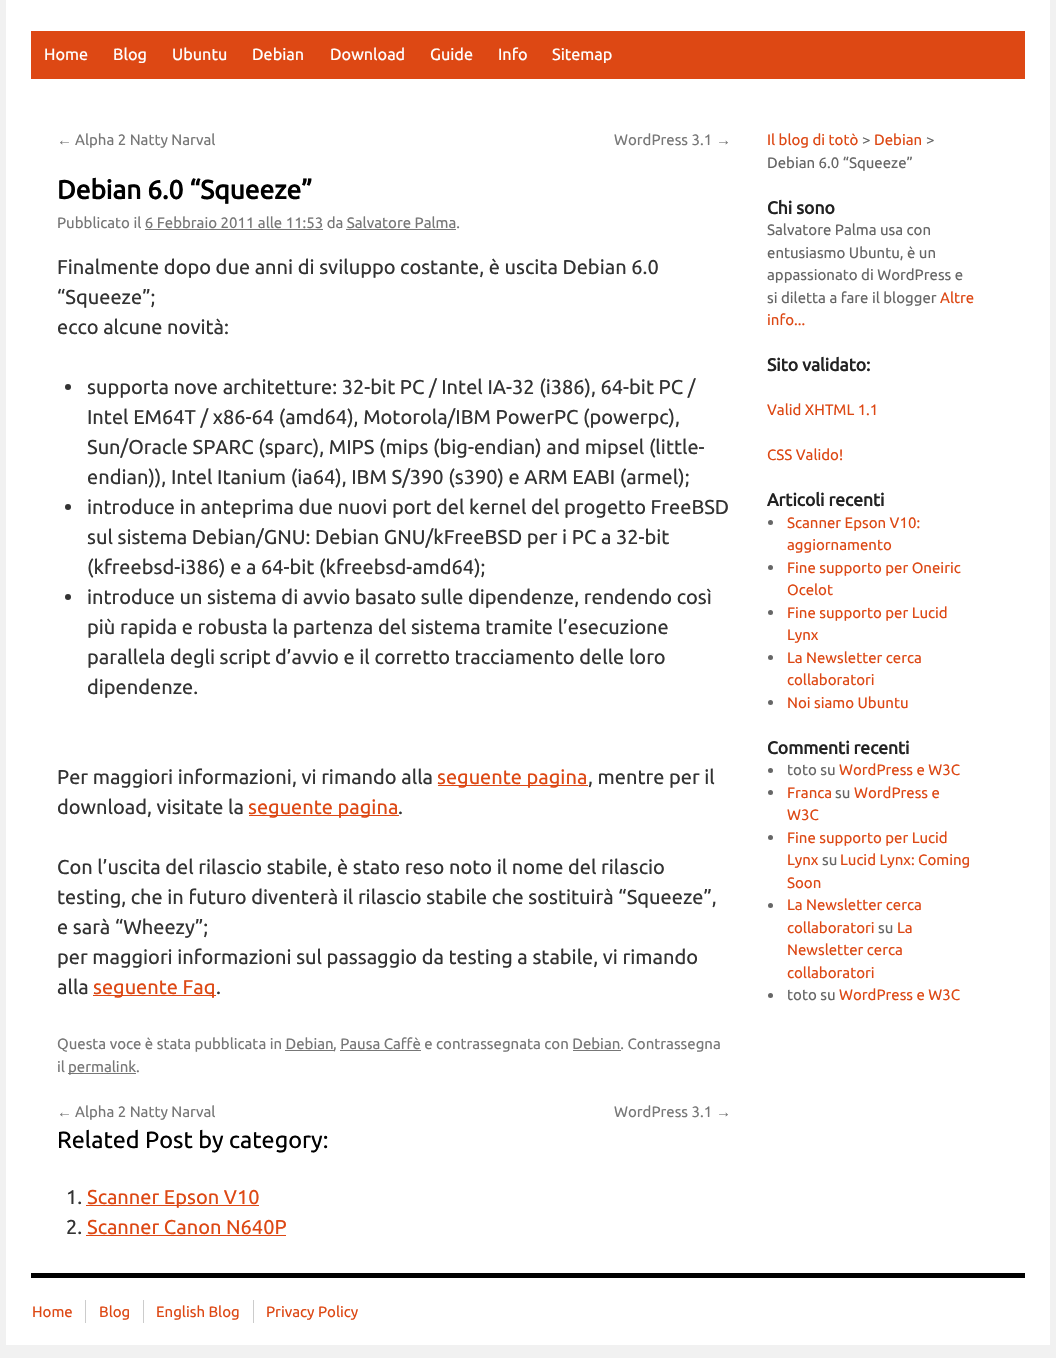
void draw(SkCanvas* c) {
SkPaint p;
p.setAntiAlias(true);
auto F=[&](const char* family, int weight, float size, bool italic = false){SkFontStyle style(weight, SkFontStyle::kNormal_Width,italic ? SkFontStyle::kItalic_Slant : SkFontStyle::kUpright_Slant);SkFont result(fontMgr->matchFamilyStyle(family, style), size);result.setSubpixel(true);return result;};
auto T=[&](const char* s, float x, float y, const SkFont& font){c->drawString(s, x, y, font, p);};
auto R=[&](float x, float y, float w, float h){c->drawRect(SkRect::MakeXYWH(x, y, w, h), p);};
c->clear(0xfff1f1f1);
p.setColor(0xffffffff);
R(6,0,1044,1345);
p.setColor(0xffdd4814);
R(31,31,994,48);
auto f1 = F("Ubuntu",400,16.25);
p.setColor(0xffffffff);
T("Home",44,60,f1);
T("Blog",113,60,f1);
T("Ubuntu",172,60,f1);
T("Debian",252,60,f1);
T("Download",330,60,f1);
T("Guide",430,60,f1);
T("Info",498,60,f1);
T("Sitemap",552,60,f1);
auto f2 = F("Liberation Sans",400,15);
p.setColor(0xff777777);
T("←",57,145,f2);
auto f3 = F("Ubuntu",400,15);
T("Alpha 2 Natty Narval",75,145,f3);
T("WordPress 3.1",614,145,f3);
T("→",716,145,f2);
auto f4 = F("Ubuntu",700,26.25);
p.setColor(0xff000000);
T("Debian 6.0 “Squeeze”",57,199,f4);
p.setColor(0xff777777);
T("Pubblicato il 6 Febbraio 2011 alle 11:53 da Salvatore Palma.",57,228,f3);
R(145,229,178,1);
R(346,229,110,1);
auto f5 = F("Ubuntu",400,20);
p.setColor(0xff333333);
T("Finalmente dopo due anni di sviluppo costante, è uscita Debian 6.0",57,274,f5);
T("“Squeeze”;",57,304,f5);
T("ecco alcune novità:",57,334,f5);
c->drawCircle(68,387,3,p);
T("supporta nove architetture: 32-bit PC / Intel IA-32 (i386), 64-bit PC /",87,394,f5);
T("Intel EM64T / x86-64 (amd64), Motorola/IBM PowerPC (powerpc),",87,424,f5);
T("Sun/Oracle SPARC (sparc), MIPS (mips (big-endian) and mipsel (little-",87,454,f5);
T("endian)), Intel Itanium (ia64), IBM S/390 (s390) e ARM EABI (armel);",87,484,f5);
c->drawCircle(68,507,3,p);
T("introduce in anteprima due nuovi port del kernel del progetto FreeBSD",87,514,f5);
T("sul sistema Debian/GNU: Debian GNU/kFreeBSD per i PC a 32-bit",87,544,f5);
T("(kfreebsd-i386) e a 64-bit (kfreebsd-amd64);",87,574,f5);
c->drawCircle(68,597,3,p);
T("introduce un sistema di avvio basato sulle dipendenze, rendendo così",87,604,f5);
T("più rapida e robusta la partenza del sistema tramite l’esecuzione",87,634,f5);
T("parallela degli script d’avvio e il corretto tracciamento delle loro",87,664,f5);
T("dipendenze.",87,694,f5);
T("Per maggiori informazioni, vi rimando alla",57,784,f5);
p.setColor(0xffdd4814);
R(438,785,150,1);
T("seguente pagina",437,784,f5);
p.setColor(0xff333333);
T(", mentre per il",588,784,f5);
T("download, visitate la",57,814,f5);
p.setColor(0xffdd4814);
R(249,815,150,1);
T("seguente pagina",248,814,f5);
p.setColor(0xff333333);
T(".",398,814,f5);
T("Con l’uscita del rilascio stabile, è stato reso noto il nome del rilascio",57,874,f5);
T("testing, che in futuro diventerà il rilascio stabile che sostituirà “Squeeze”,",57,904,f5);
T("e sarà “Wheezy”;",57,934,f5);
T("per maggiori informazioni sul passaggio da testing a stabile, vi rimando",57,964,f5);
T("alla",57,994,f5);
p.setColor(0xffdd4814);
R(93,995,123,1);
T("seguente Faq",93,994,f5);
p.setColor(0xff333333);
T(".",216,994,f5);
p.setColor(0xff777777);
T("Questa voce è stata pubblicata in Debian",57,1049,f3);
R(285,1050,49,1);
T(", Pausa Caffè e contrassegnata con Debian. Contrassegna",333,1049,f3);
R(340,1050,81,1);
R(573,1050,48,1);
T("il",57,1072,f3);
R(68,1073,68,1);
T("permalink.",68,1072,f3);
T("←",57,1117,f2);
T("Alpha 2 Natty Narval",75,1117,f3);
T("WordPress 3.1",614,1117,f3);
T("→",716,1117,f2);
auto f6 = F("Ubuntu",400,23.4);
p.setColor(0xff000000);
T("Related Post by category:",57,1148,f6);
p.setColor(0xff333333);
T("1.",66,1204,f5);
p.setColor(0xffdd4814);
R(86,1205,173,1);
T("Scanner Epson V10",87,1204,f5);
p.setColor(0xff333333);
T("2.",66,1234,f5);
p.setColor(0xffdd4814);
T("Scanner Canon N640P",87,1234,f5);
R(86,1235,200,1);
T("Il blog di totò",767,145,f3);
p.setColor(0xff666666);
T(">",862,145,f3);
p.setColor(0xffdd4814);
T("Debian",874,145,f3);
p.setColor(0xff666666);
T(">",926,145,f3);
T("Debian 6.0 “Squeeze”",767,168,f3);
auto f7 = F("Ubuntu",700,17.5);
p.setColor(0xff222222);
T("Chi sono",767,214,f7);
p.setColor(0xff666666);
T("Salvatore Palma usa con",767,235,f3);
T("entusiasmo Ubuntu, è un",767,258,f3);
T("appassionato di WordPress e",767,280,f3);
T("si diletta a fare il blogger",767,303,f3);
p.setColor(0xffdd4814);
T("Altre",940,303,f3);
T("info...",767,325,f3);
p.setColor(0xff222222);
T("Sito validato:",767,371,f7);
p.setColor(0xffdd4814);
T("Valid XHTML 1.1",767,415,f3);
T("CSS Valido!",767,460,f3);
p.setColor(0xff222222);
T("Articoli recenti",767,506,f7);
p.setColor(0xff666666);
c->drawCircle(770.5,522.5,2.5,p);
p.setColor(0xffdd4814);
T("Scanner Epson V10:",787,528,f3);
T("aggiornamento",787,550,f3);
p.setColor(0xff666666);
c->drawCircle(770.5,567.5,2.5,p);
p.setColor(0xffdd4814);
T("Fine supporto per Oneiric",787,573,f3);
T("Ocelot",787,595,f3);
p.setColor(0xff666666);
c->drawCircle(770.5,612.5,2.5,p);
p.setColor(0xffdd4814);
T("Fine supporto per Lucid",787,618,f3);
T("Lynx",787,640,f3);
p.setColor(0xff666666);
c->drawCircle(770.5,657.5,2.5,p);
p.setColor(0xffdd4814);
T("La Newsletter cerca",787,663,f3);
T("collaboratori",787,685,f3);
p.setColor(0xff666666);
c->drawCircle(770.5,702.5,2.5,p);
p.setColor(0xffdd4814);
T("Noi siamo Ubuntu",787,708,f3);
p.setColor(0xff222222);
T("Commenti recenti",767,754,f7);
p.setColor(0xff666666);
c->drawCircle(770.5,770.5,2.5,p);
T("toto su",787,775,f3);
p.setColor(0xffdd4814);
T("WordPress e W3C",839,775,f3);
p.setColor(0xff666666);
c->drawCircle(770.5,792.5,2.5,p);
p.setColor(0xffdd4814);
T("Franca",787,798,f3);
p.setColor(0xff666666);
T("su",835,798,f3);
p.setColor(0xffdd4814);
T("WordPress e",854,798,f3);
T("W3C",787,820,f3);
p.setColor(0xff666666);
c->drawCircle(770.5,837.5,2.5,p);
p.setColor(0xffdd4814);
T("Fine supporto per Lucid",787,843,f3);
T("Lynx",787,865,f3);
p.setColor(0xff666666);
T("su",822,865,f3);
p.setColor(0xffdd4814);
T("Lucid Lynx: Coming",840,865,f3);
T("Soon",787,888,f3);
p.setColor(0xff666666);
c->drawCircle(770.5,905.5,2.5,p);
p.setColor(0xffdd4814);
T("La Newsletter cerca",787,910,f3);
T("collaboratori",787,933,f3);
p.setColor(0xff666666);
T("su",878,933,f3);
p.setColor(0xffdd4814);
T("La",897,933,f3);
T("Newsletter cerca",787,955,f3);
T("collaboratori",787,978,f3);
p.setColor(0xff666666);
c->drawCircle(770.5,995.5,2.5,p);
T("toto su",787,1000,f3);
p.setColor(0xffdd4814);
T("WordPress e W3C",839,1000,f3);
p.setColor(0xff000000);
R(31,1273,994,5);
p.setColor(0xffdd4814);
T("Home",32,1317,f3);
p.setColor(0xffcccccc);
R(85,1300,1,23);
p.setColor(0xffdd4814);
T("Blog",99,1317,f3);
p.setColor(0xffcccccc);
R(143,1300,1,23);
p.setColor(0xffdd4814);
T("English Blog",156,1317,f3);
p.setColor(0xffcccccc);
R(253,1300,1,23);
p.setColor(0xffdd4814);
T("Privacy Policy",266,1317,f3);
}
